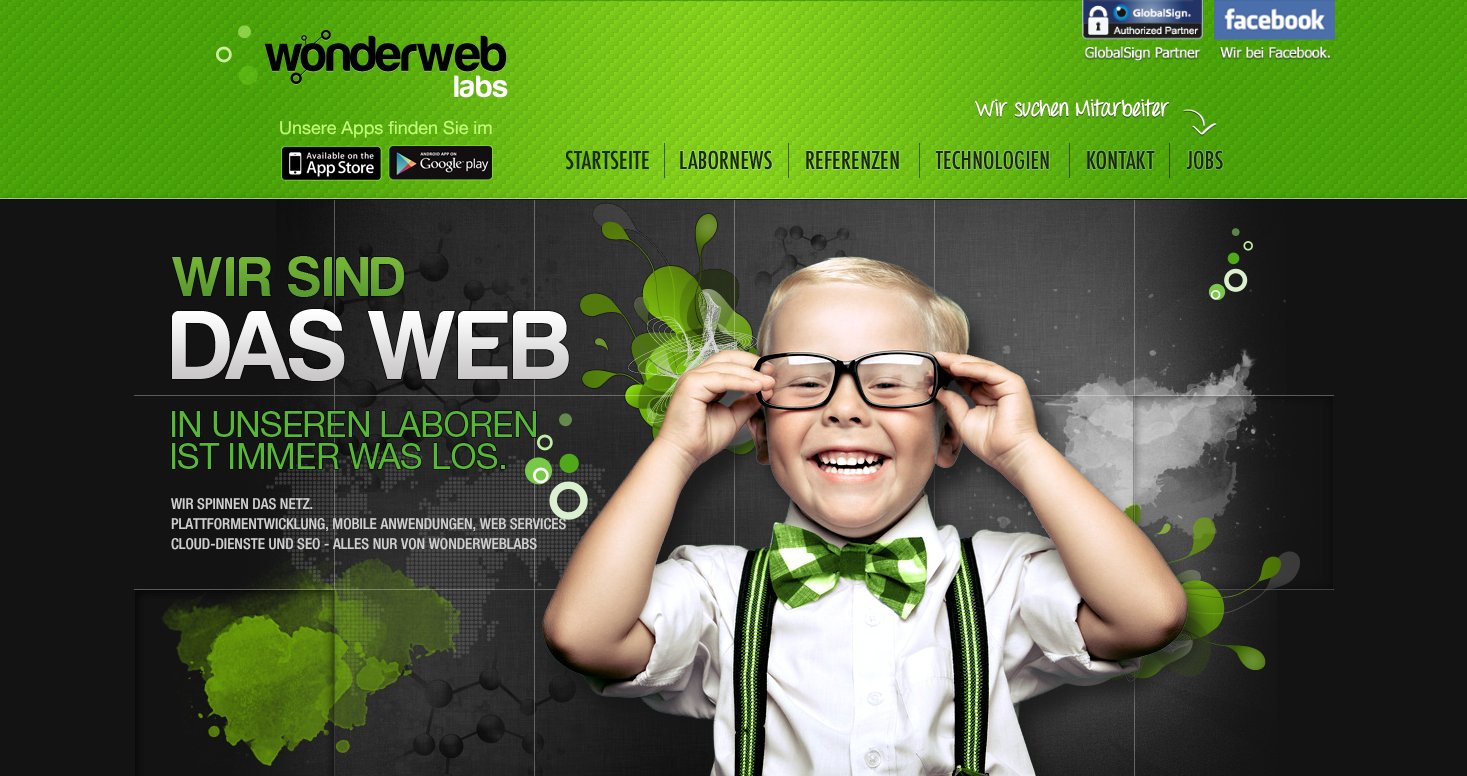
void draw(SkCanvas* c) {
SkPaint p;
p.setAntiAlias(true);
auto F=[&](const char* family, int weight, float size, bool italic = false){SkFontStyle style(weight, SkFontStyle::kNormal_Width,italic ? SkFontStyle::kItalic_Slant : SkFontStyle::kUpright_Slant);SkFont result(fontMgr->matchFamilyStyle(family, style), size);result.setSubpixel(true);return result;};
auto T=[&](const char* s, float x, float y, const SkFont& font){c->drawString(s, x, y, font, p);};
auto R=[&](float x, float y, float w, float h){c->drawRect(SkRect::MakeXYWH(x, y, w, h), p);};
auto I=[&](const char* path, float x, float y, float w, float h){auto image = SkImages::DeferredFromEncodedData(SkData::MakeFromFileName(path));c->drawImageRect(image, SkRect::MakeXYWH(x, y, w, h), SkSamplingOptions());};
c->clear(0xff131313);
I("1.png",0,199,1467,1);
I("2.png",0,0,1467,199);
I("3.png",238,25,13,14);
I("4.png",216,46,16,17);
I("5.png",238,66,20,19);
I("6.png",264,30,244,68);
I("7.png",1082,0,121,61);
I("8.png",1214,0,121,60);
auto f1 = F("Helvetica Neue",400,18);
p.setColor(0xffc0ff77);
T("Unsere Apps finden Sie im",279,134,f1);
I("9.png",281,145,101,36);
I("10.png",388,145,105,36);
I("11.png",975,99,242,37);
I("12.png",566,150,90,20);
p.setColor(0x80000000);
R(664,143,1,35);
I("13.png",680,150,93,20);
R(788,143,1,35);
I("14.png",806,150,94,20);
R(919,143,1,35);
I("15.png",936,150,114,20);
R(1069,143,1,35);
I("16.png",1087,150,69,20);
R(1169,143,1,35);
I("17.png",1187,150,53,20);
I("18.png",276,200,58,195);
I("19.png",334,200,200,195);
I("20.png",534,200,200,195);
I("21.png",734,200,200,195);
I("22.png",934,200,200,195);
I("23.png",1134,200,152,195);
I("28.png",534,395,200,195);
I("29.png",734,395,200,160);
I("30.png",934,395,200,148);
I("31.png",1134,395,200,195);
I("35.png",534,590,182,186);
I("36.png",1013,668,121,108);
I("37.png",1134,590,143,186);
I("25.png",542,256,671,520);
I("24.png",171,255,399,127);
I("26.png",134,395,200,195);
I("27.png",334,395,200,195);
I("32.png",171,410,366,60);
auto f2 = F("Helvetica Neue",500,15);
p.setColor(0xffcfcfcf);
T("WIR SPINNEN DAS NETZ.",171,509,f2);
T("PLATTFORMENTWICKLUNG, MOBILE ANWENDUNGEN, WEB SERVICES",171,529,f2);
T("CLOUD-DIENSTE UND SEO - ALLES NUR VON WONDERWEBLABS",171,549,f2);
I("33.png",135,590,199,186);
I("34.png",334,590,200,186);
}
